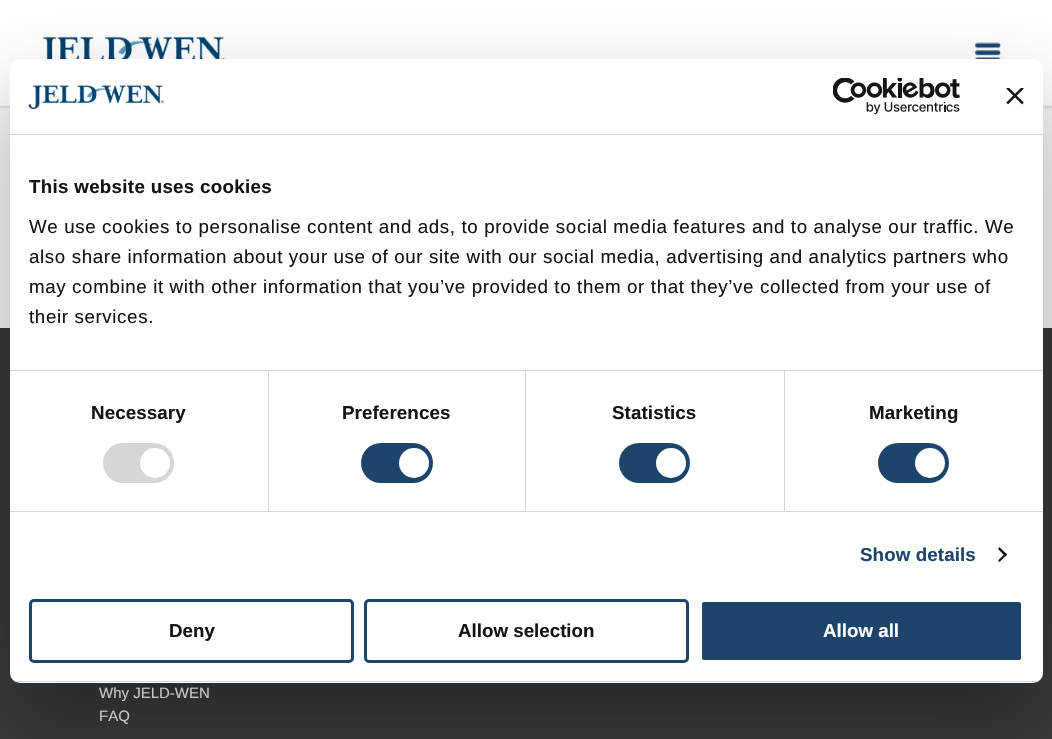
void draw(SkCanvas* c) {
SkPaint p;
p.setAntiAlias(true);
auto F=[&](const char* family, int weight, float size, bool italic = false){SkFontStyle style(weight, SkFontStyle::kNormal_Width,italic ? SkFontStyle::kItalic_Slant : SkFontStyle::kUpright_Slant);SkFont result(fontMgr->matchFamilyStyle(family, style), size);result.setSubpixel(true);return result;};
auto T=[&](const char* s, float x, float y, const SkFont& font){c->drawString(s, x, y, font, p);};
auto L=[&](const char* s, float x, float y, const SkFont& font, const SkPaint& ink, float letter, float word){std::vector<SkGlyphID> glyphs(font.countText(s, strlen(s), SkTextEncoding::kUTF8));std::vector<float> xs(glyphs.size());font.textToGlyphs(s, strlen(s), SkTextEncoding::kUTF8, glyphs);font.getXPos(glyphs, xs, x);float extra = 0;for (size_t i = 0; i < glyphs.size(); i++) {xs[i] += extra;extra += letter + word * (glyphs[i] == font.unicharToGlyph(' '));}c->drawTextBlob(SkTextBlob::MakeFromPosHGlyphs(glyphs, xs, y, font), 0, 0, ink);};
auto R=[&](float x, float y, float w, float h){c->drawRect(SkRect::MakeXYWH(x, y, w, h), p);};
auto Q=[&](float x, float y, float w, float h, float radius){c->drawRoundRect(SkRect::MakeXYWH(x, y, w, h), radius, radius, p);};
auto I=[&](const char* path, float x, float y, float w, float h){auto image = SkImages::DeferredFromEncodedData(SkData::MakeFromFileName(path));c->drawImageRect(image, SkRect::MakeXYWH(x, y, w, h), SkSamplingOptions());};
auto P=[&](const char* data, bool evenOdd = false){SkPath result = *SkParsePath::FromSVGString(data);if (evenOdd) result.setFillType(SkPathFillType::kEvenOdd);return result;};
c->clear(0xfff7f7f7);
p.setColor(0x1a000000);
p.setMaskFilter(SkMaskFilter::MakeBlur(kNormal_SkBlurStyle, 1));
c->drawRect(SkRect::MakeXYWH(0,1,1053,107),p);
p.setMaskFilter(nullptr);
p.setColor(0xffffffff);
R(0,0,1052,105);
p.setColor(0xfff7f7f7);
R(0,105,1052,1);
I("1.png",43,36,182,23);
I("2.png",974,42,28,17);
p.setColor(0xff373b3e);
R(0,328,1052,411);
p.setColor(0x4d000000);
p.setMaskFilter(SkMaskFilter::MakeBlur(kNormal_SkBlurStyle, 42.5));
c->drawRoundRect(SkRect::MakeXYWH(10,99,1033,624),10,10,p);
p.setMaskFilter(nullptr);
p.setColor(0xffffffff);
Q(10,59,1033,624,10);
p.setColor(0xffd6d6d6);
R(10,134,1033,1);
I("3.png",28,85,136,25);
I("4.png",833,78,127,37);
I("5.png",1006,88,18,17);
R(10,370,1033,1);
auto f1 = F("Liberation Sans",700,18.75);
p.setColor(0xff141414);
L("This website uses cookies",29,193,f1,p,.3,0);
auto f2 = F("Liberation Sans",400,18.75);
L("We use cookies to personalise content and ads, to provide social media features and to analyse our traffic. We",29,233,f2,p,.62,0);
L("also share information about your use of our site with our social media, advertising and analytics partners who",29,263,f2,p,.62,0);
L("may combine it with other information that you’ve provided to them or that they’ve collected from your use of",29,293,f2,p,.62,0);
L("their services.",29,323,f2,p,.62,0);
p.setColor(0xffd6d6d6);
R(10,511,1033,1);
R(268,371,1,140);
p.setColor(0xff141414);
L("Necessary",91,419,f1,p,.1,0);
p.setColor(0xffd6d6d6);
Q(103,443,71,40,20);
p.setColor(0xffffffff);
c->drawCircle(155,463,15,p);
p.setColor(0xffd6d6d6);
R(525,371,1,140);
p.setColor(0xff141414);
L("Preferences",342,419,f1,p,.1,0);
p.setColor(0xff1d446b);
Q(361,443,72,40,20);
p.setColor(0xffffffff);
c->drawCircle(414,463,15,p);
p.setColor(0xffd6d6d6);
R(784,371,1,140);
p.setColor(0xff141414);
L("Statistics",612,419,f1,p,.1,0);
p.setColor(0xff1d446b);
Q(619,443,71,40,20);
p.setColor(0xffffffff);
c->drawCircle(671,463,15,p);
p.setColor(0xff141414);
L("Marketing",869,419,f1,p,.1,0);
p.setColor(0xff1d446b);
Q(878,443,71,40,20);
p.setColor(0xffffffff);
c->drawCircle(930,463,15,p);
p.setColor(0xff1d446b);
L("Show details",860,561,f1,p,.1,0);
p.setColor(0xff141414);
c->drawPath(P("M999.5 547l7.5 7.5l-1.5 2l-7.5-7.5z"),p);
c->drawPath(P("M1005.5 553l1.5 1.5l-7.5 7.5l-1.5-1.5z"),p);
c->save();
c->clipPath(P("M20 59h1013c5.5 0 10 4.5 10 10v604c0 5.5-4.5 10-10 10h-1013c-5.5 0-10-4.5-10-10v-604c0-5.5 4.5-10 10-10z"),true);
p.setColor(0xffd6d6d6);
R(10,681,1033,1);
c->restore();
p.setStroke(true);
p.setStrokeWidth(3);
p.setColor(0xff1d446b);
c->drawRoundRect(SkRect::MakeXYWH(30.5,600.5,322,61),3.5,3.5,p);
p.setStroke(false);
p.setColor(0xff141414);
T("Deny",169,637,f1);
p.setStroke(true);
p.setColor(0xff1d446b);
c->drawRoundRect(SkRect::MakeXYWH(365.5,600.5,322,61),3.5,3.5,p);
p.setStroke(false);
p.setColor(0xff141414);
T("Allow selection",458,637,f1);
p.setColor(0xff1d446b);
c->drawRoundRect(SkRect::MakeXYWH(700.5,600.5,322,61),3.5,3.5,p);
p.setStroke(true);
p.setColor(0xffffffff);
c->drawRoundRect(SkRect::MakeXYWH(700.5,600.5,322,61),3.5,3.5,p);
p.setStroke(false);
T("Allow all",823,637,f1);
auto f3 = F("Liberation Sans",400,15);
p.setColor(0xffc7c8ca);
T("Why JELD-WEN",99,698,f3);
T("FAQ",99,721,f3);
}
